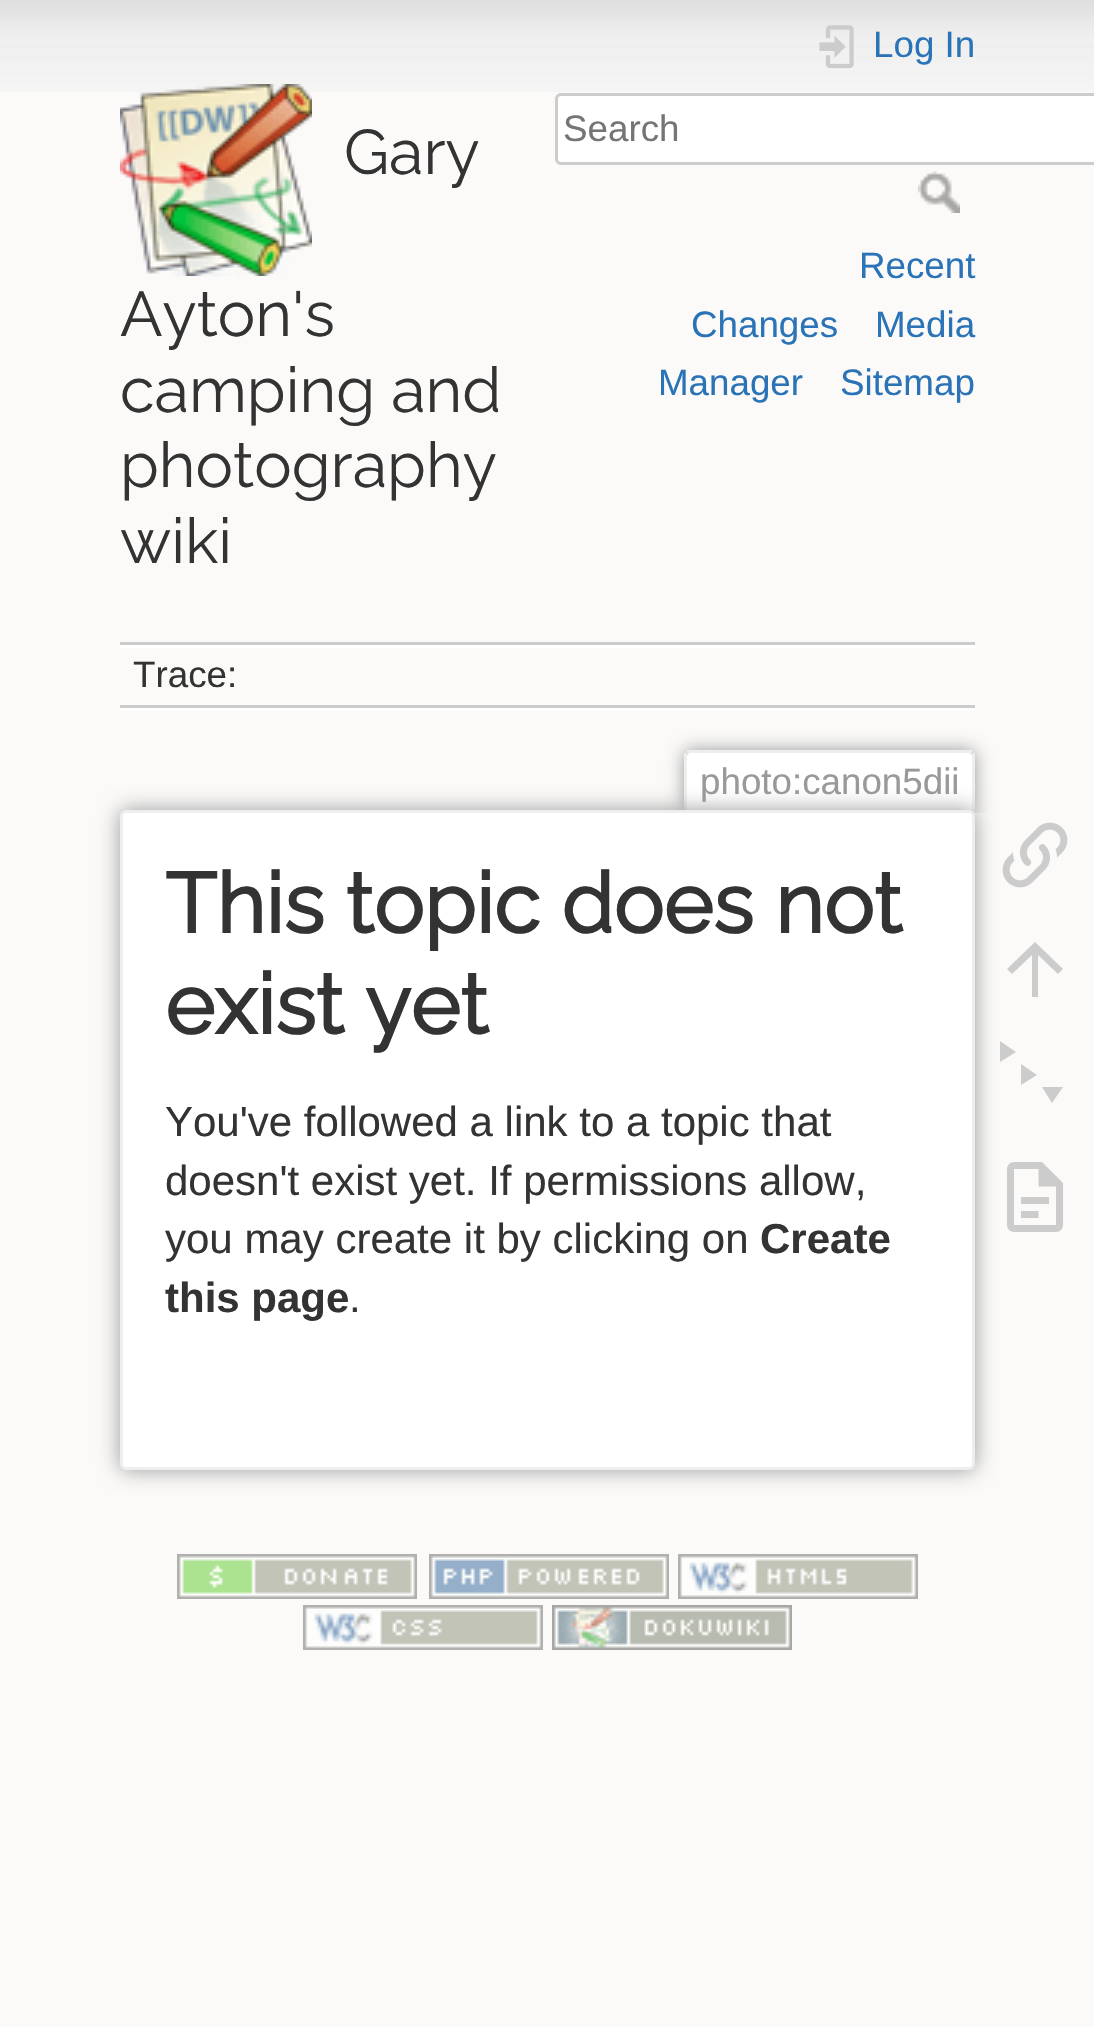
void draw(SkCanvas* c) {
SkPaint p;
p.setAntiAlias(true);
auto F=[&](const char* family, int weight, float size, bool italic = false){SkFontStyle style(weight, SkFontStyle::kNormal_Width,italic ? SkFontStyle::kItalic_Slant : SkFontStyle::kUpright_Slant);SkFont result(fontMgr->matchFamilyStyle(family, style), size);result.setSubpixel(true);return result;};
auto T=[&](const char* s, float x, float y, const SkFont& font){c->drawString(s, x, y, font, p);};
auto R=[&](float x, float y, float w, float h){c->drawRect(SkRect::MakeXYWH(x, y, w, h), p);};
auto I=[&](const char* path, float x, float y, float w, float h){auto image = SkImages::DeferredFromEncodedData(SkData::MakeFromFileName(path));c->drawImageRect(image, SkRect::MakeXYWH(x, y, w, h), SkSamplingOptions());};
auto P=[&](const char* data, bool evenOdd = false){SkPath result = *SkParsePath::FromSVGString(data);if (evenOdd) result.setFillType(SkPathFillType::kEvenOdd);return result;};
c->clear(0xfffbfaf9);
I("1.png",0,0,1094,92);
I("2.png",120,84,192,192);
auto f1 = F("Raleway",100,63);
p.setColor(0xff333333);
T("Gary",344,174,f1);
T("Ayton's",120,336,f1);
T("camping and",120,412,f1);
T("photography",120,487,f1);
T("wiki",120,563,f1);
I("3.png",819,25,35,44);
auto f2 = F("Liberation Sans",400,36.75);
p.setColor(0xff2b73b7);
T("Log In",873,57,f2);
p.setColor(0xffffffff);
c->drawRoundRect(SkRect::MakeXYWH(556.5,94.5,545,69),4.5,4.5,p);
p.setStroke(true);
p.setStrokeWidth(3);
p.setColor(0xffcccccc);
c->drawRoundRect(SkRect::MakeXYWH(556.5,94.5,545,69),4.5,4.5,p);
p.setStroke(false);
p.setColor(0xff757575);
T("Search",563,141,f2);
I("4.png",918,171,42,42);
p.setColor(0xff2b73b7);
T("Recent",859,278,f2);
T("Changes",691,337,f2);
T("Media",875,337,f2);
T("Manager",658,395,f2);
T("Sitemap",840,395,f2);
p.setColor(0xffcccccc);
R(120,642,855,3);
p.setColor(0xffffffff);
R(120,708,855,3);
R(120,645,855,3);
p.setColor(0xffcccccc);
R(120,705,855,3);
p.setColor(0xff333333);
T("Trace:",133,687,f2);
c->save();
c->clipRect(SkRect::MakeXYWH(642,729,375,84));
p.setColor(0xff999999);
p.setMaskFilter(SkMaskFilter::MakeBlur(kNormal_SkBlurStyle, 9));
c->drawRoundRect(SkRect::MakeXYWH(684,750,291,63),6,6,p);
p.setMaskFilter(nullptr);
c->restore();
p.setColor(0xffffffff);
c->drawPath(P("M690 753h279c1.5 0 3 1.5 3 3v57h-285v-57c0-1.5 1.5-3 3-3z"),p);
p.setColor(0xffeeeeee);
R(687,750,285,3);
R(972,753,3,60);
R(684,753,3,60);
p.setColor(0xff999999);
T("photo:canon5dii",700,794,f2);
p.setMaskFilter(SkMaskFilter::MakeBlur(kNormal_SkBlurStyle, 10.5));
c->drawRoundRect(SkRect::MakeXYWH(120,810,855,660),6,6,p);
p.setMaskFilter(nullptr);
p.setColor(0xffffffff);
c->drawRoundRect(SkRect::MakeXYWH(121.5,811.5,852,657),4.5,4.5,p);
p.setStroke(true);
p.setColor(0xffeeeeee);
c->drawRoundRect(SkRect::MakeXYWH(121.5,811.5,852,657),4.5,4.5,p);
auto f3 = F("Raleway",700,84);
p.setStroke(false);
p.setColor(0xff333333);
T("This topic does not",165,933,f3);
T("exist yet",165,1034,f3);
auto f4 = F("Liberation Sans",400,42);
T("You've followed a link to a topic that",165,1136,f4);
T("doesn't exist yet. If permissions allow,",165,1195,f4);
T("you may create it by clicking on",165,1253,f4);
auto f5 = F("Liberation Sans",700,42);
T("Create",760,1253,f5);
T("this page",165,1312,f5);
T(".",349,1312,f4);
I("5.png",1002,822,66,66);
p.setColor(0xffcccccc);
c->drawPath(P("M1038 997h-6v-42l-20 19l-5-5l28-27l28 27l-5 5l-20-19z"),p);
c->drawPath(P("M1000 1041l16 11l-16 10zm21 23l16 11l-16 10zm21 23h21l-11 16z"),p);
I("6.png",1007,1162,56,70);
I("7.png",177,1554,240,45);
I("8.png",429,1554,240,45);
I("9.png",678,1554,240,45);
I("10.png",303,1605,240,45);
I("11.png",552,1605,240,45);
}
